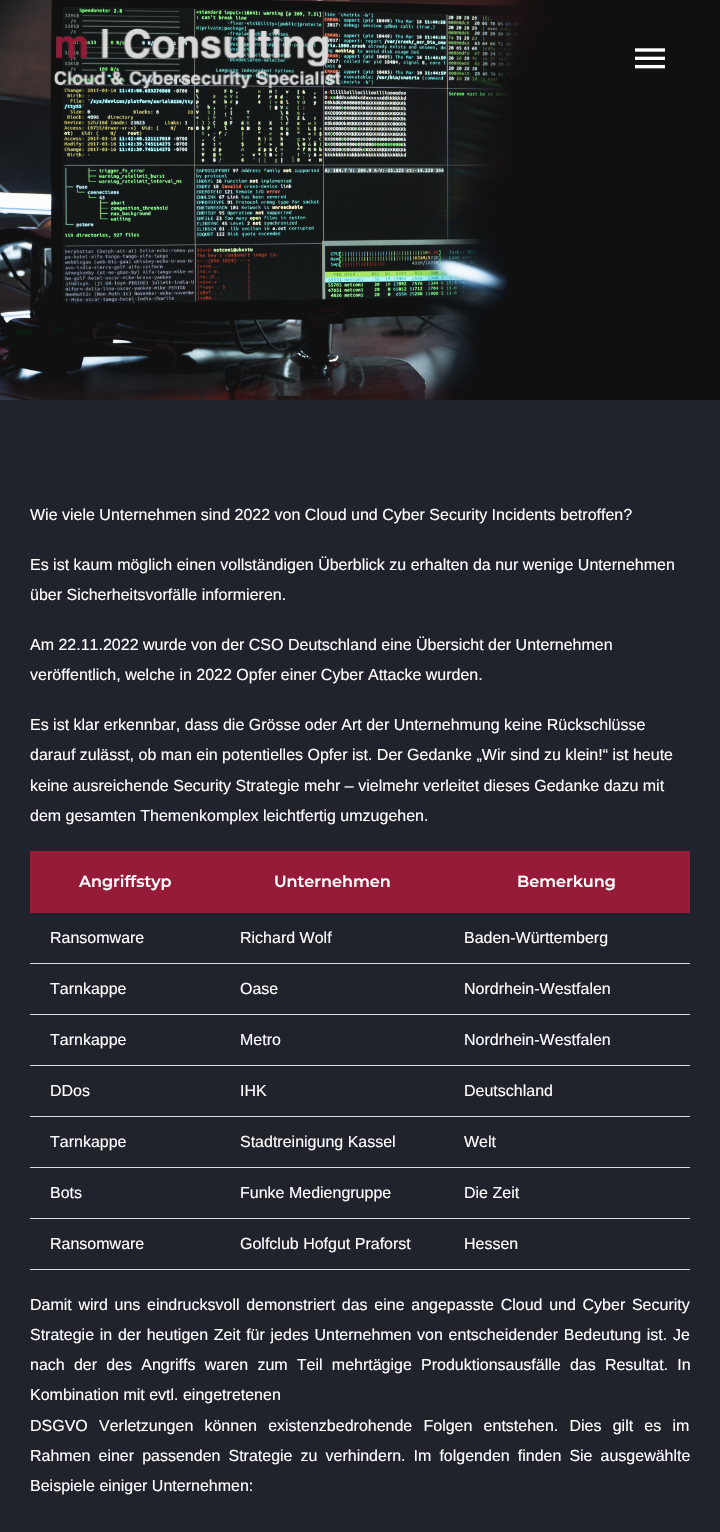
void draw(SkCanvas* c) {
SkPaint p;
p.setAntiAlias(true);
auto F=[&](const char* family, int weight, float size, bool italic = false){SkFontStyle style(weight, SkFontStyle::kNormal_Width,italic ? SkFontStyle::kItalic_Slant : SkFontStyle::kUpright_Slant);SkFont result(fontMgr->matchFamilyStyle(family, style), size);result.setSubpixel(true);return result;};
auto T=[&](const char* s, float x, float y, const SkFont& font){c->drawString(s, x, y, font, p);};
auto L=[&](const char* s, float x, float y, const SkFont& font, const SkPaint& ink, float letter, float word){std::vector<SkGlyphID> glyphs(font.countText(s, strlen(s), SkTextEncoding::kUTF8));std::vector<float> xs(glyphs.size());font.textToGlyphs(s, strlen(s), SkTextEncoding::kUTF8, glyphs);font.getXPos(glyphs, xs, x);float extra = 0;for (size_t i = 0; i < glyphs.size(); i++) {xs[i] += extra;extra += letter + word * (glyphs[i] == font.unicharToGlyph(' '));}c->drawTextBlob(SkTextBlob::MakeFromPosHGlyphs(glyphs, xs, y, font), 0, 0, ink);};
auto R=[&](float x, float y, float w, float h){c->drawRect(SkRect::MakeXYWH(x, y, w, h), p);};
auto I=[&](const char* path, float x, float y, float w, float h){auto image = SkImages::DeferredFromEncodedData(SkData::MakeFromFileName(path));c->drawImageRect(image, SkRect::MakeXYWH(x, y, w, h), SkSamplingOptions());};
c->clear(0xff20232c);
I("1.png",0,0,720,400);
I("2.png",54,28,289,61);
I("3.png",635,48,30,21);
auto f1 = F("Liberation Sans",400,16);
p.setColor(0xffffffff);
T("Wie viele Unternehmen sind 2022 von Cloud und Cyber Security Incidents betroffen?",30,520,f1);
T("Es ist kaum möglich einen vollständigen Überblick zu erhalten da nur wenige Unternehmen",30,570,f1);
T("über Sicherheitsvorfälle informieren.",30,600,f1);
T("Am 22.11.2022 wurde von der CSO Deutschland eine Übersicht der Unternehmen",30,650,f1);
T("veröffentlich, welche in 2022 Opfer einer Cyber Attacke wurden.",30,680,f1);
T("Es ist klar erkennbar, dass die Grösse oder Art der Unternehmung keine Rückschlüsse",30,730,f1);
T("darauf zulässt, ob man ein potentielles Opfer ist. Der Gedanke „Wir sind zu klein!“ ist heute",30,760,f1);
T("keine ausreichende Security Strategie mehr – vielmehr verleitet dieses Gedanke dazu mit",30,791,f1);
T("dem gesamten Themenkomplex leichtfertig umzugehen.",30,821,f1);
p.setColor(0xff961b38);
R(30,851,659,61);
R(689,851,1,62);
R(30,912,660,1);
auto f2 = F("Montserrat",600,16);
p.setColor(0xffffffff);
T("Angriffstyp",79,887,f2);
T("Unternehmen",274,887,f2);
T("Bemerkung",517,887,f2);
T("Ransomware",50,943,f1);
T("Richard Wolf",240,943,f1);
p.setColor(0xffdcdcdc);
R(30,963,660,1);
p.setColor(0xffffffff);
T("Baden-Württemberg",464,943,f1);
T("Tarnkappe",50,994,f1);
T("Oase",240,994,f1);
p.setColor(0xffdcdcdc);
R(30,1014,660,1);
p.setColor(0xffffffff);
T("Nordrhein-Westfalen",464,994,f1);
T("Tarnkappe",50,1045,f1);
T("Metro",240,1045,f1);
p.setColor(0xffdcdcdc);
R(30,1065,660,1);
p.setColor(0xffffffff);
T("Nordrhein-Westfalen",464,1045,f1);
T("DDos",50,1096,f1);
T("IHK",240,1096,f1);
p.setColor(0xffdcdcdc);
R(30,1116,660,1);
p.setColor(0xffffffff);
T("Deutschland",464,1096,f1);
T("Tarnkappe",50,1147,f1);
T("Stadtreinigung Kassel",240,1147,f1);
p.setColor(0xffdcdcdc);
R(30,1167,660,1);
p.setColor(0xffffffff);
T("Welt",464,1147,f1);
T("Bots",50,1198,f1);
T("Funke Mediengruppe",240,1198,f1);
p.setColor(0xffdcdcdc);
R(30,1218,660,1);
p.setColor(0xffffffff);
T("Die Zeit",464,1198,f1);
T("Ransomware",50,1249,f1);
T("Golfclub Hofgut Praforst",240,1249,f1);
p.setColor(0xffdcdcdc);
R(30,1269,660,1);
p.setColor(0xffffffff);
T("Hessen",464,1249,f1);
L("Damit wird uns eindrucksvoll demonstriert das eine angepasste Cloud und Cyber Security",30,1310,f1,p,0,2.25);
L("Strategie in der heutigen Zeit für jedes Unternehmen von entscheidender Bedeutung ist. Je",30,1340,f1,p,0,1.25);
L("nach der des Angriffs waren zum Teil mehrtägige Produktionsausfälle das Resultat. In",30,1370,f1,p,0,4.75);
T("Kombination mit evtl. eingetretenen",30,1400,f1);
L("DSGVO Verletzungen können existenzbedrohende Folgen entstehen. Dies gilt es im",30,1431,f1,p,0,6.75);
L("Rahmen einer passenden Strategie zu verhindern. Im folgenden finden Sie ausgewählte",30,1461,f1,p,0,3.6);
T("Beispiele einiger Unternehmen:",30,1491,f1);
}
